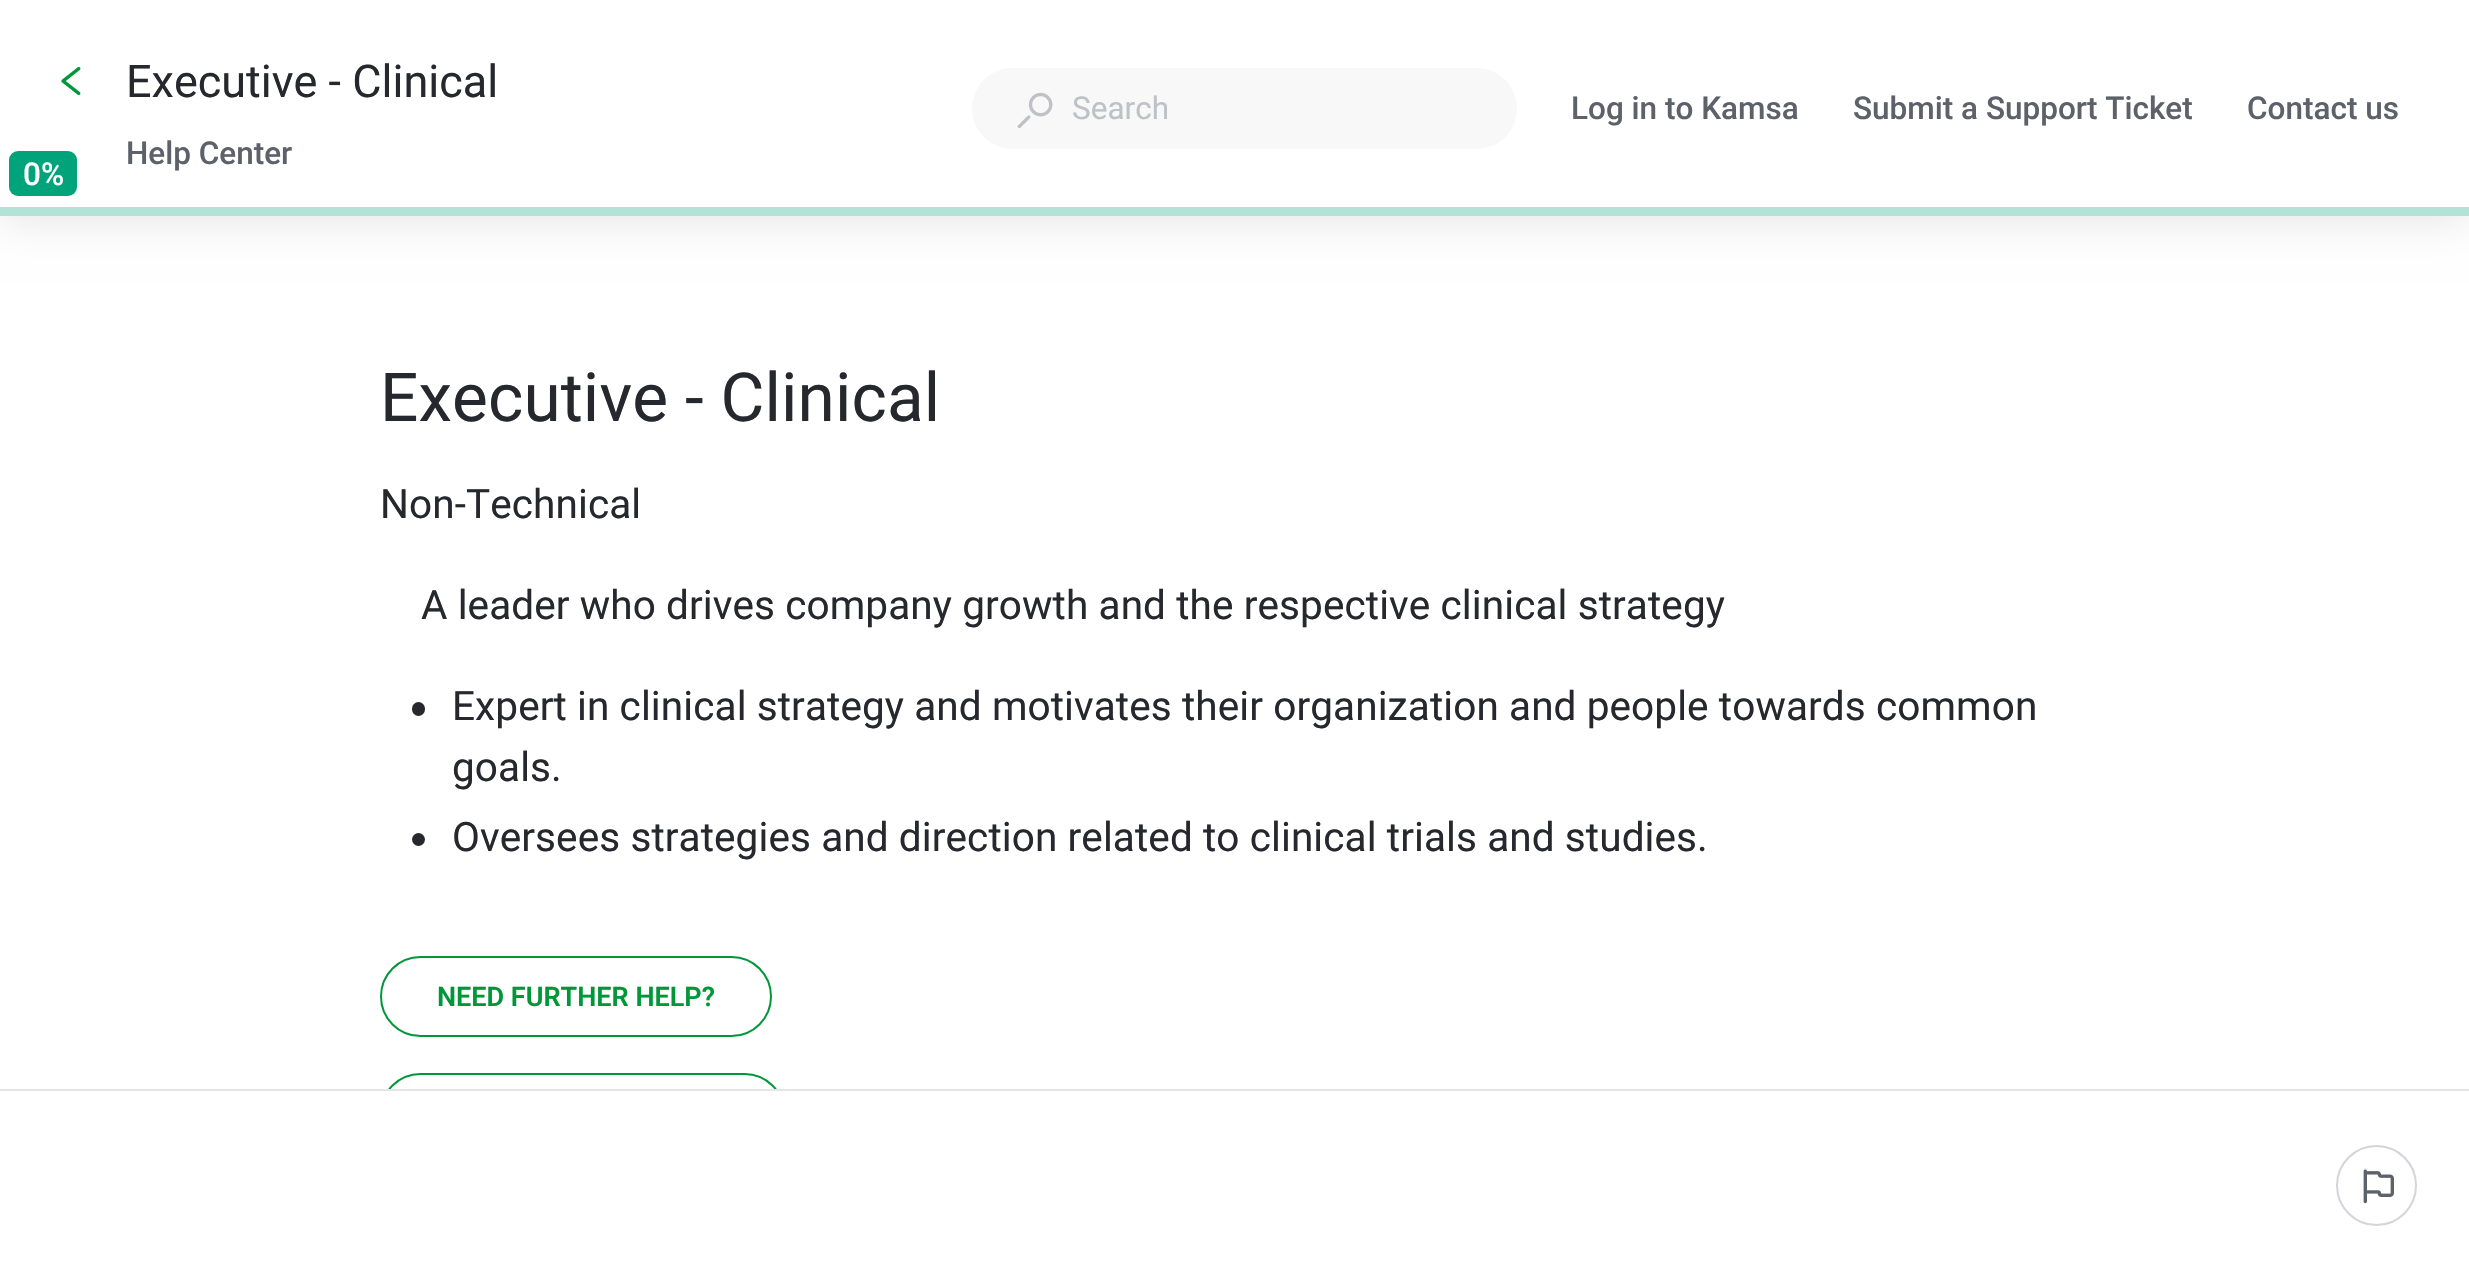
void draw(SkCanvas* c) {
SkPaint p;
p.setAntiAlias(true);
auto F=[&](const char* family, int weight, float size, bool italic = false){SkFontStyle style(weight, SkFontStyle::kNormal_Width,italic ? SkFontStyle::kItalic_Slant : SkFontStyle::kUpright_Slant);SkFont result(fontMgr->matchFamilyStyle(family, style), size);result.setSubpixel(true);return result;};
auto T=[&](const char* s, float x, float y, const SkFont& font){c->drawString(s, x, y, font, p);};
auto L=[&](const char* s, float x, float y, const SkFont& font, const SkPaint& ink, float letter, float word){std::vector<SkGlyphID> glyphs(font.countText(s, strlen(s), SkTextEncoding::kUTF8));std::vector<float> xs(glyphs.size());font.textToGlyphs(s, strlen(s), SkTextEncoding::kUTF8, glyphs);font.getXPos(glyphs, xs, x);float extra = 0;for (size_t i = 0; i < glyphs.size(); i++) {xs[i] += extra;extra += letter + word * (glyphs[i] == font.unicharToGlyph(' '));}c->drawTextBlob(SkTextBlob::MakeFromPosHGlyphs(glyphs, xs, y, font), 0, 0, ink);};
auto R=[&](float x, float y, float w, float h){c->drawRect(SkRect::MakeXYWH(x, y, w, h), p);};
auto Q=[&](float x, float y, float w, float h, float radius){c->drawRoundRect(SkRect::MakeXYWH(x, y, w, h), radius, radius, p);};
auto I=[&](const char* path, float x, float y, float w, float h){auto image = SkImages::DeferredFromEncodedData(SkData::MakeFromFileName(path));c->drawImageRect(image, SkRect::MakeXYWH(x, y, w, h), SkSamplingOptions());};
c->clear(0xffffffff);
p.setColor(0x1f000000);
p.setMaskFilter(SkMaskFilter::MakeBlur(kNormal_SkBlurStyle, 22.5));
c->drawRect(SkRect::MakeXYWH(0,0,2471,216),p);
p.setMaskFilter(nullptr);
p.setColor(0xffffffff);
R(0,0,2469,207);
I("1.png",61,66,20,29);
auto f1 = F("Roboto",400,45);
p.setColor(0xff26282e);
T("Executive - Clinical",126,97,f1);
auto f2 = F("Roboto",500,31.5);
p.setColor(0xff5d6169);
T("Help Center",126,164,f2);
p.setColor(0xfff8f8f9);
Q(972,68,545,81,40.5);
I("2.png",1017,92,36,36);
auto f3 = F("Roboto",400,31.5);
p.setColor(0xffbfc1c6);
T("Search",1072,119,f3);
p.setColor(0xff5d6169);
T("Log in to Kamsa",1571,119,f2);
T("Submit a Support Ticket",1853,119,f2);
T("Contact us",2247,119,f2);
p.setColor(0xff00a37a);
Q(9,151,68,45,9);
p.setColor(0xffffffff);
T("0%",23,185,f2);
p.setColor(0xffb3e3d7);
R(0,207,2469,9);
auto f4 = F("Roboto",400,67.5);
p.setColor(0xff26282e);
L("Executive - Clinical",380,421,f4,p,.1,0);
auto f5 = F("Roboto",400,40.5);
L("Non-Technical",380,518,f5,p,.1,0);
L("A leader who drives company growth and the respective clinical strategy",421,619,f5,p,.1,0);
Q(412,702,13,14,6.5);
L("Expert in clinical strategy and motivates their organization and people towards common",452,720,f5,p,.1,0);
L("goals.",452,781,f5,p,.1,0);
c->drawCircle(418.5,839.5,6.5,p);
L("Oversees strategies and direction related to clinical trials and studies.",452,851,f5,p,.1,0);
p.setStroke(true);
p.setStrokeWidth(2);
p.setColor(0xff009739);
c->drawRoundRect(SkRect::MakeXYWH(381,957,390,79),39.5,39.5,p);
auto f6 = F("Roboto",600,27);
p.setStroke(false);
T("NEED FURTHER HELP?",437,1006,f6);
c->save();
c->clipRect(SkRect::MakeXYWH(0,216,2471,873));
p.setStroke(true);
c->drawRoundRect(SkRect::MakeXYWH(381,1074,403,79),39.5,39.5,p);
c->restore();
p.setStroke(false);
p.setColor(0xffe3e5e9);
R(0,1089,2469,2);
p.setStroke(true);
p.setColor(0xffd3d5da);
c->drawCircle(2376.5,1185.5,39.5,p);
I("3.png",2363,1169,31,35);
}
